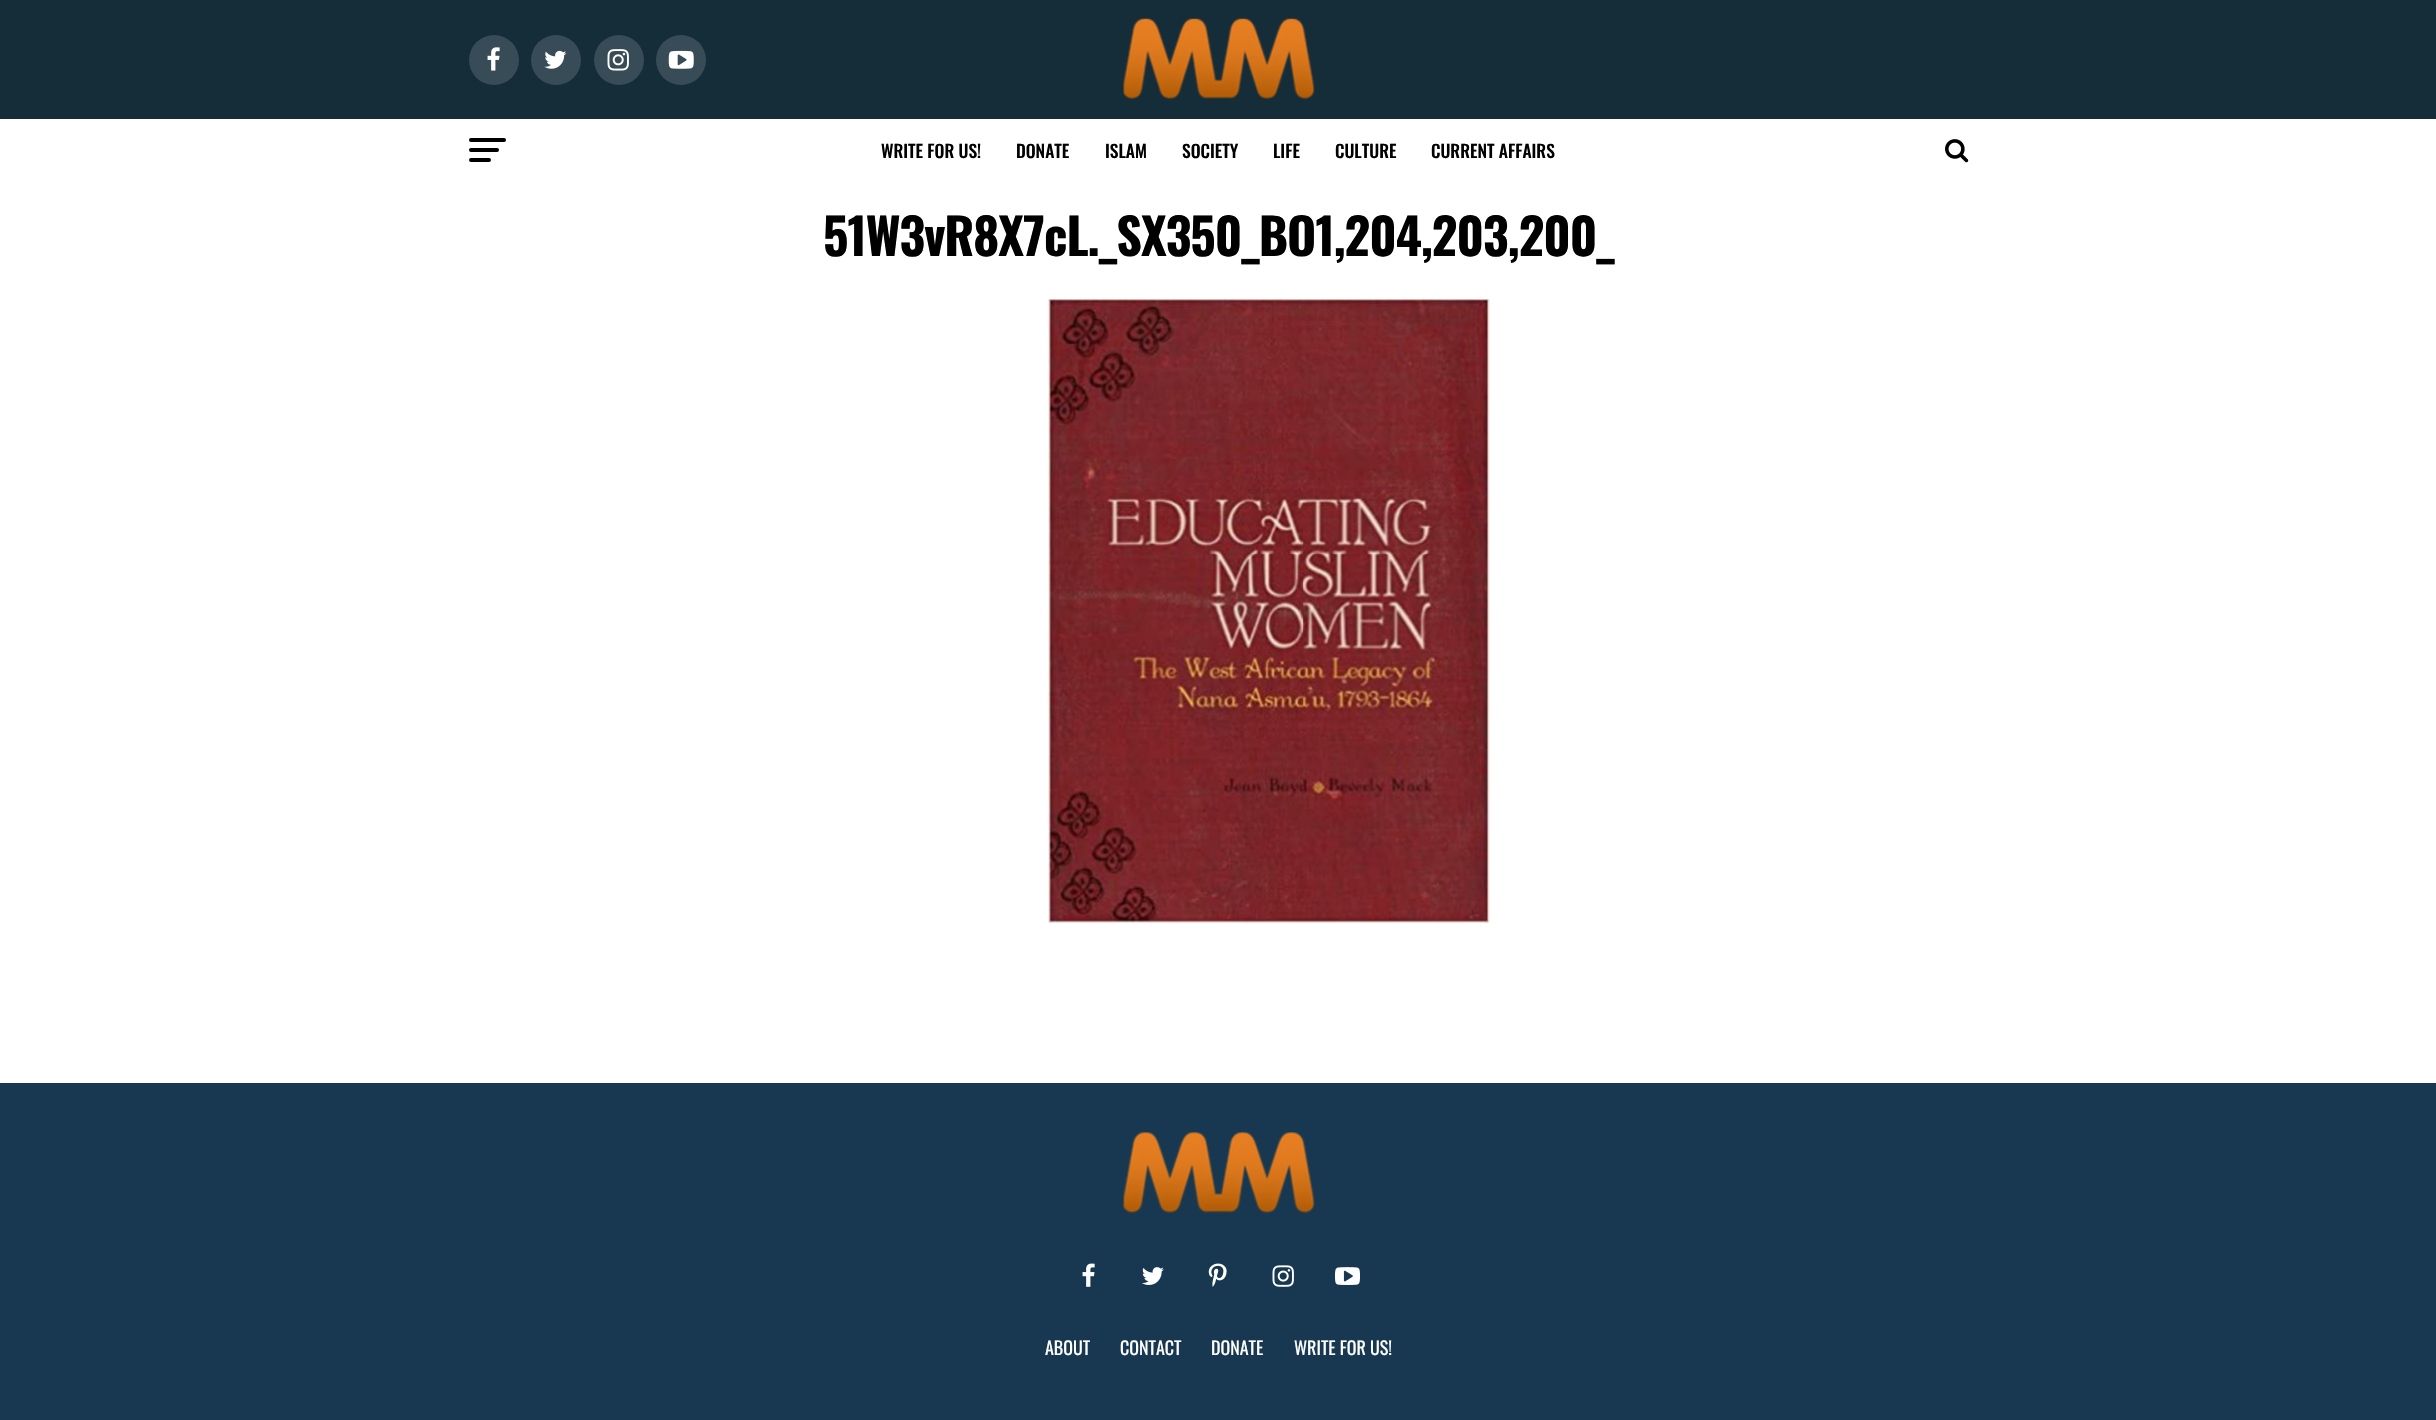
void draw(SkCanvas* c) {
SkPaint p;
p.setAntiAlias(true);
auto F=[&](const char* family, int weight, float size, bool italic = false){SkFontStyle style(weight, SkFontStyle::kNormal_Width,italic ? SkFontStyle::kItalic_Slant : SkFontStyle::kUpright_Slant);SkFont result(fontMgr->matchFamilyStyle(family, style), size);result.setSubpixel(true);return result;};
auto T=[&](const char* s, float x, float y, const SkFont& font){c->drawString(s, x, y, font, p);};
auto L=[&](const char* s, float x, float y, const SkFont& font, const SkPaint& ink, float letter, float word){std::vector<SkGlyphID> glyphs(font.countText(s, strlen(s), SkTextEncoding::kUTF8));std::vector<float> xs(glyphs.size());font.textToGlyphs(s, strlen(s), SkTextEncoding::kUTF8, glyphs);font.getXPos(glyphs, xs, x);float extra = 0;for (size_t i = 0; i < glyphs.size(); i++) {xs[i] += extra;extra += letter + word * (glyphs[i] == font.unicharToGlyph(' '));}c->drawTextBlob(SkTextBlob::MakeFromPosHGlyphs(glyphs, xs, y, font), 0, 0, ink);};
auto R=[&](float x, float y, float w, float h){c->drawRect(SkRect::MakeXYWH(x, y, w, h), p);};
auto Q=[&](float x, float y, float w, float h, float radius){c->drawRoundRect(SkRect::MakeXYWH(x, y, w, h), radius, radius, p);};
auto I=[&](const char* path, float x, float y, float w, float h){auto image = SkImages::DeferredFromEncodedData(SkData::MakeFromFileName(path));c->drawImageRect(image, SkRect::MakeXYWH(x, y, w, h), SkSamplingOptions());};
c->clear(0xffffffff);
p.setColor(0xff152c39);
R(0,0,2436,119);
p.setColor(0xff384c57);
c->drawCircle(494,60,25,p);
I("1.png",487,47,13,24);
c->drawCircle(556,60,25,p);
I("2.png",544,50,23,19);
c->drawCircle(619,60,25,p);
I("3.png",607,49,22,22);
c->drawCircle(681,60,25,p);
I("4.png",668,50,26,19);
I("5.png",1123,18,192,82);
p.setColor(0xff000000);
Q(469,138,37,4,2);
Q(469,148,30,4,2);
Q(469,158,22,4,2);
auto f1 = F("Oswald",500,17.5);
T("WRITE FOR US!",881,158,f1);
T("DONATE",1016,158,f1);
T("ISLAM",1105,158,f1);
T("SOCIETY",1182,158,f1);
T("LIFE",1273,158,f1);
T("CULTURE",1335,158,f1);
T("CURRENT AFFAIRS",1431,158,f1);
I("6.png",1945,139,24,24);
auto f2 = F("Oswald",700,50);
L("51W3vR8X7cL._SX350_BO1,204,203,200_",823,256,f2,p,-1,0);
I("7.png",1048,299,442,624);
p.setColor(0xff173850);
R(0,1083,2436,337);
I("8.png",1123,1132,192,82);
I("9.png",1082,1263,13,24);
I("10.png",1142,1267,22,18);
I("11.png",1208,1263,19,24);
I("12.png",1272,1265,22,22);
I("13.png",1335,1267,25,18);
auto f3 = F("Oswald",400,18);
p.setColor(0xffffffff);
T("ABOUT",1045,1355,f3);
T("CONTACT",1120,1355,f3);
T("DONATE",1211,1355,f3);
T("WRITE FOR US!",1294,1355,f3);
}
